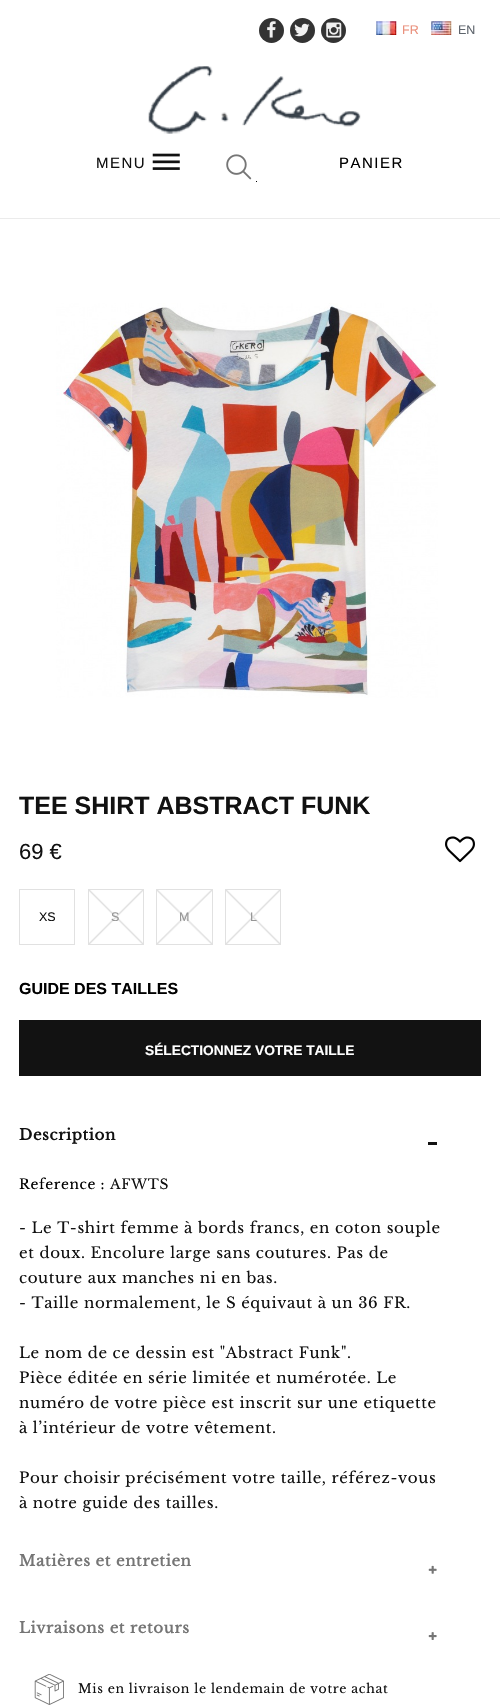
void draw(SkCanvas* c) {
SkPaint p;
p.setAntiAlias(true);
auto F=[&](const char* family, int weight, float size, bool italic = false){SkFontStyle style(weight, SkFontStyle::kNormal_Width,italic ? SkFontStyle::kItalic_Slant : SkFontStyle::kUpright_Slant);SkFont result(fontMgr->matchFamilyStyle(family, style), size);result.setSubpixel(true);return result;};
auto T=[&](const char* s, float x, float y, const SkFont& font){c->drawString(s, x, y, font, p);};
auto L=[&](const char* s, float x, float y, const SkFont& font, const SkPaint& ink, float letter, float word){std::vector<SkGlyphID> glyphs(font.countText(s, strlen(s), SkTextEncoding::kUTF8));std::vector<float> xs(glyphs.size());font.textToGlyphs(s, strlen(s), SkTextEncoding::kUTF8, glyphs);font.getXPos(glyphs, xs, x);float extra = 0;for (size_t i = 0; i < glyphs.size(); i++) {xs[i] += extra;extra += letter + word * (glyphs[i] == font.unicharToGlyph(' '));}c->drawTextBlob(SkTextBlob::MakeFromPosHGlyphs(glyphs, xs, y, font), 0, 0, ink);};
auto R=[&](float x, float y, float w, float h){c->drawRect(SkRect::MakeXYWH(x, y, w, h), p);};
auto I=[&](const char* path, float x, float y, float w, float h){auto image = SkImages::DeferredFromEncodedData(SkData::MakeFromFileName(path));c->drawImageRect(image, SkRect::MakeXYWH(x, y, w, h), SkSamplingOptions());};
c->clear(0xffffffff);
p.setColor(0xffebebeb);
R(0,218,500,1);
p.setColor(0xff333333);
c->drawCircle(271.5,30.5,12.5,p);
I("1.png",267,21,9,17);
c->drawCircle(302.5,30.5,12.5,p);
I("2.png",294,23,16,14);
c->drawCircle(333.5,30.5,12.5,p);
I("3.png",326,22,16,16);
I("4.png",376,21,21,14);
auto f1 = F("Liberation Sans",400,12.5);
p.setColor(0xffea917d);
T("FR",402,34,f1);
I("5.png",431,21,21,14);
p.setColor(0xff5e646c);
T("EN",458,34,f1);
I("6.png",148,66,213,68);
auto f2 = F("Liberation Sans",400,15);
p.setColor(0xff111111);
L("MENU",96,168,f2,p,1.5,0);
I("7.png",152,153,28,17);
I("8.png",226,154,26,26);
p.setColor(0xff000000);
L("PANIER",339,168,f2,p,1.5,0);
R(256,181,1,1);
I("9.png",56,303,382,395);
auto f3 = F("Liberation Sans",700,25);
p.setColor(0xff111111);
T("TEE SHIRT ABSTRACT FUNK",19,814,f3);
auto f4 = F("Liberation Sans",400,22);
T("69 €",19,859,f4);
I("10.png",445,836,30,27);
p.setStroke(true);
p.setStrokeWidth(1);
p.setColor(0xffe1e1e1);
c->drawRect(SkRect::MakeXYWH(19.5,889.5,55,55),p);
p.setStroke(false);
p.setColor(0xff111111);
T("XS",39,921,f1);
{
const SkColor colors[] = {0xffffffff,0xffe1e1e1,0xffffffff};
const float stops[] = {.48,.5,.52};
const SkPoint ends[] = {{89,944}, {143,890}};
p.setShader(SkGradientShader::MakeLinear(ends, colors, stops, 3, SkTileMode::kClamp));
p.setAlpha(255);
}
R(89,890,54,54);
{
const SkColor colors[] = {0x00e1e1e1,0xffe1e1e1,0x00e1e1e1};
const float stops[] = {.48,.5,.52};
const SkPoint ends[] = {{143,944}, {89,890}};
p.setShader(SkGradientShader::MakeLinear(ends, colors, stops, 3, SkTileMode::kClamp));
p.setAlpha(255);
}
R(89,890,54,54);
p.setStroke(true);
p.setShader(nullptr);
p.setColor(0xffe1e1e1);
c->drawRect(SkRect::MakeXYWH(88.5,889.5,55,55),p);
p.setStroke(false);
p.setColor(0xff969696);
T("S",111,921,f1);
{
const SkColor colors[] = {0xffffffff,0xffe1e1e1,0xffffffff};
const float stops[] = {.48,.5,.52};
const SkPoint ends[] = {{104,944}, {158,890}};
p.setShader(SkGradientShader::MakeLinear(ends, colors, stops, 3, SkTileMode::kClamp));
p.setAlpha(255);
}
R(157,942,1,2);
{
const SkColor colors[] = {0xffffffff,0xffe1e1e1,0xffffffff};
const float stops[] = {.48,.5,.52};
const SkPoint ends[] = {{158,944}, {211,890}};
p.setShader(SkGradientShader::MakeLinear(ends, colors, stops, 3, SkTileMode::kClamp));
p.setAlpha(255);
}
R(158,890,53,54);
{
const SkColor colors[] = {0xffffffff,0xffe1e1e1,0xffffffff};
const float stops[] = {.48,.5,.52};
const SkPoint ends[] = {{211,944}, {265,890}};
p.setShader(SkGradientShader::MakeLinear(ends, colors, stops, 3, SkTileMode::kClamp));
p.setAlpha(255);
}
R(211,890,1,2);
{
const SkColor colors[] = {0x00e1e1e1,0xffe1e1e1,0x00e1e1e1};
const float stops[] = {.48,.5,.52};
const SkPoint ends[] = {{158,944}, {104,890}};
p.setShader(SkGradientShader::MakeLinear(ends, colors, stops, 3, SkTileMode::kClamp));
p.setAlpha(255);
}
R(157,890,1,3);
{
const SkColor colors[] = {0x00e1e1e1,0xffe1e1e1,0x00e1e1e1};
const float stops[] = {.48,.5,.52};
const SkPoint ends[] = {{211,944}, {158,890}};
p.setShader(SkGradientShader::MakeLinear(ends, colors, stops, 3, SkTileMode::kClamp));
p.setAlpha(255);
}
R(158,890,53,54);
{
const SkColor colors[] = {0x00e1e1e1,0xffe1e1e1,0x00e1e1e1};
const float stops[] = {.48,.5,.52};
const SkPoint ends[] = {{265,944}, {211,890}};
p.setShader(SkGradientShader::MakeLinear(ends, colors, stops, 3, SkTileMode::kClamp));
p.setAlpha(255);
}
R(211,941,1,3);
p.setStroke(true);
p.setShader(nullptr);
p.setColor(0xffe1e1e1);
c->drawRect(SkRect::MakeXYWH(156.5,889.5,56,55),p);
p.setStroke(false);
p.setColor(0xff969696);
T("M",179,921,f1);
{
const SkColor colors[] = {0xffffffff,0xffe1e1e1,0xffffffff};
const float stops[] = {.48,.5,.52};
const SkPoint ends[] = {{226,944}, {280,890}};
p.setShader(SkGradientShader::MakeLinear(ends, colors, stops, 3, SkTileMode::kClamp));
p.setAlpha(255);
}
R(226,890,54,54);
{
const SkColor colors[] = {0x00e1e1e1,0xffe1e1e1,0x00e1e1e1};
const float stops[] = {.48,.5,.52};
const SkPoint ends[] = {{280,944}, {226,890}};
p.setShader(SkGradientShader::MakeLinear(ends, colors, stops, 3, SkTileMode::kClamp));
p.setAlpha(255);
}
R(226,890,54,54);
p.setStroke(true);
p.setShader(nullptr);
p.setColor(0xffe1e1e1);
c->drawRect(SkRect::MakeXYWH(225.5,889.5,55,55),p);
p.setStroke(false);
p.setColor(0xff969696);
T("L",250,921,f1);
auto f5 = F("Liberation Sans",700,16);
p.setColor(0xff000000);
T("GUIDE DES TAILLES",19,994,f5);
p.setColor(0xff121212);
R(19,1020,462,56);
auto f6 = F("Liberation Sans",700,13.75);
p.setColor(0xffffffff);
T("SÉLECTIONNEZ VOTRE TAILLE",145,1055,f6);
auto f7 = F("Libre Baskerville",700,15);
p.setColor(0xff111111);
L("Description",19,1140,f7,p,.62,0);
p.setColor(0xff121212);
R(428,1142,9,3);
auto f8 = F("Libre Baskerville",400,13.75);
p.setColor(0xff000000);
L("Reference :",19,1189,f8,p,.62,0);
p.setColor(0xff111111);
L("AFWTS",110,1189,f8,p,.62,0);
auto f9 = F("Libre Baskerville",400,15);
L("- Le T-shirt femme à bords francs, en coton souple",19,1233,f9,p,.62,0);
L("et doux. Encolure large sans coutures. Pas de",19,1258,f9,p,.62,0);
L("couture aux manches ni en bas.",19,1283,f9,p,.62,0);
L("- Taille normalement, le S équivaut à un 36 FR.",19,1308,f9,p,.62,0);
L("Le nom de ce dessin est \"Abstract Funk\".",19,1358,f9,p,.62,0);
L("Pièce éditée en série limitée et numérotée. Le",19,1383,f9,p,.62,0);
L("numéro de votre pièce est inscrit sur une etiquette",19,1408,f9,p,.62,0);
L("à l’intérieur de votre vêtement.",19,1433,f9,p,.62,0);
L("Pour choisir précisément votre taille, référez-vous",19,1483,f9,p,.62,0);
L("à notre guide des tailles.",19,1508,f9,p,.62,0);
p.setColor(0xff757575);
L("Matières et entretien",19,1566,f7,p,.62,0);
I("11.png",428,1565,9,9);
L("Livraisons et retours",19,1633,f7,p,.62,0);
I("12.png",428,1632,9,8);
I("13.png",34,1674,30,31);
auto f10 = F("Libre Baskerville",400,12.5);
p.setColor(0xff111111);
L("Mis en livraison le lendemain de votre achat",78,1693,f10,p,.62,0);
}
